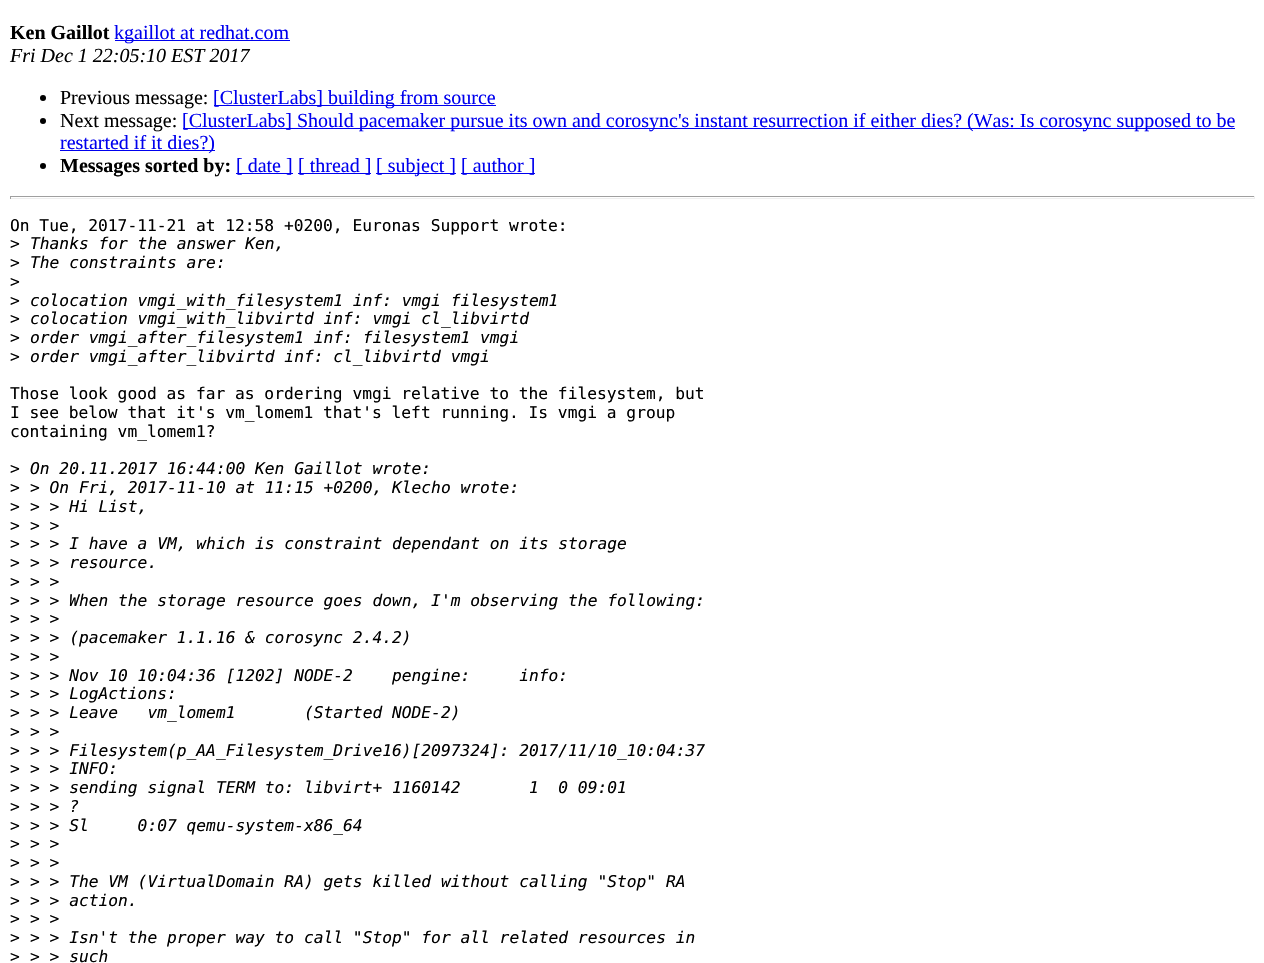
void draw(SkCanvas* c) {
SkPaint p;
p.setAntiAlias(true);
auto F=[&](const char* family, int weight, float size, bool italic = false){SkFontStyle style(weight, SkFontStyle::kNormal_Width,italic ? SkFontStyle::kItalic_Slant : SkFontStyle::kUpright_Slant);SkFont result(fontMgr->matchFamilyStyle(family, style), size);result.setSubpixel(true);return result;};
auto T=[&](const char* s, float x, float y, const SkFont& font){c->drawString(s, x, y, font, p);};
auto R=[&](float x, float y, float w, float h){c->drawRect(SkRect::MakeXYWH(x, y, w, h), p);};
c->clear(0xffffffff);
auto f1 = F("Liberation Serif",700,20);
p.setColor(0xff000000);
T("Ken Gaillot",10,39,f1);
p.setColor(0xff0000ee);
R(115,40,175,1);
auto f2 = F("Liberation Serif",400,20);
T("kgaillot at redhat.com",114,39,f2);
auto f3 = F("Liberation Serif",400,20,true);
p.setColor(0xff000000);
T("Fri Dec 1 22:05:10 EST 2017",10,62,f3);
c->drawCircle(43,98,3,p);
T("Previous message:",60,104,f2);
p.setColor(0xff0000ee);
R(214,105,282,1);
T("[ClusterLabs] building from source",213,104,f2);
p.setColor(0xff000000);
c->drawCircle(43,121,3,p);
T("Next message:",60,127,f2);
p.setColor(0xff0000ee);
R(183,128,1052,1);
T("[ClusterLabs] Should pacemaker pursue its own and corosync's instant resurrection if either dies? (Was: Is corosync supposed to be",182,127,f2);
R(60,150,155,1);
T("restarted if it dies?)",60,149,f2);
p.setColor(0xff000000);
c->drawCircle(43,166,3,p);
T("Messages sorted by:",60,172,f1);
p.setColor(0xff0000ee);
R(236,173,57,1);
T("[ date ]",236,172,f2);
R(298,173,73,1);
T("[ thread ]",298,172,f2);
R(376,173,80,1);
T("[ subject ]",376,172,f2);
R(461,173,74,1);
T("[ author ]",461,172,f2);
p.setColor(0xff9f9f9f);
R(10,196,1245,1);
p.setColor(0xffeeeeee);
R(1254,196,1,3);
R(10,198,1245,1);
p.setColor(0xff9f9f9f);
R(10,196,1,3);
auto f4 = F("DejaVu Sans Mono",400,16.25);
p.setColor(0xff000000);
T("On Tue, 2017-11-21 at 12:58 +0200, Euronas Support wrote:",10,231,f4);
T(">",10,249,f4);
auto f5 = F("DejaVu Sans Mono",400,16.25,true);
T("Thanks for the answer Ken,",30,249,f5);
T(">",10,268,f4);
T("The constraints are:",30,268,f5);
T(">",10,287,f4);
T(">",10,306,f4);
T("colocation vmgi_with_filesystem1 inf: vmgi filesystem1",30,306,f5);
T(">",10,324,f4);
T("colocation vmgi_with_libvirtd inf: vmgi cl_libvirtd",30,324,f5);
T(">",10,343,f4);
T("order vmgi_after_filesystem1 inf: filesystem1 vmgi",30,343,f5);
T(">",10,362,f4);
T("order vmgi_after_libvirtd inf: cl_libvirtd vmgi",30,362,f5);
T("Those look good as far as ordering vmgi relative to the filesystem, but",10,399,f4);
T("I see below that it's vm_lomem1 that's left running. Is vmgi a group",10,418,f4);
T("containing vm_lomem1?",10,437,f4);
T(">",10,474,f4);
T("On 20.11.2017 16:44:00 Ken Gaillot wrote:",30,474,f5);
T(">",10,493,f4);
T("> On Fri, 2017-11-10 at 11:15 +0200, Klecho wrote:",30,493,f5);
T(">",10,512,f4);
T("> > Hi List,",30,512,f5);
T(">",10,531,f4);
T("> >",30,531,f5);
T(">",10,549,f4);
T("> > I have a VM, which is constraint dependant on its storage",30,549,f5);
T(">",10,568,f4);
T("> > resource.",30,568,f5);
T(">",10,587,f4);
T("> >",30,587,f5);
T(">",10,606,f4);
T("> > When the storage resource goes down, I'm observing the following:",30,606,f5);
T(">",10,624,f4);
T("> >",30,624,f5);
T(">",10,643,f4);
T("> > (pacemaker 1.1.16 & corosync 2.4.2)",30,643,f5);
T(">",10,662,f4);
T("> >",30,662,f5);
T(">",10,681,f4);
T("> > Nov 10 10:04:36 [1202] NODE-2    pengine:     info:",30,681,f5);
T(">",10,699,f4);
T("> > LogActions:",30,699,f5);
T(">",10,718,f4);
T("> > Leave   vm_lomem1       (Started NODE-2)",30,718,f5);
T(">",10,737,f4);
T("> >",30,737,f5);
T(">",10,756,f4);
T("> > Filesystem(p_AA_Filesystem_Drive16)[2097324]: 2017/11/10_10:04:37",30,756,f5);
T(">",10,774,f4);
T("> > INFO:",30,774,f5);
T(">",10,793,f4);
T("> > sending signal TERM to: libvirt+ 1160142       1  0 09:01",30,793,f5);
T(">",10,812,f4);
T("> > ?",30,812,f5);
T(">",10,831,f4);
T("> > Sl     0:07 qemu-system-x86_64",30,831,f5);
T(">",10,849,f4);
T("> >",30,849,f5);
T(">",10,868,f4);
T("> >",30,868,f5);
T(">",10,887,f4);
T("> > The VM (VirtualDomain RA) gets killed without calling \"Stop\" RA",30,887,f5);
T(">",10,906,f4);
T("> > action.",30,906,f5);
T(">",10,924,f4);
T("> >",30,924,f5);
T(">",10,943,f4);
T("> > Isn't the proper way to call \"Stop\" for all related resources in",30,943,f5);
T(">",10,962,f4);
T("> > such",30,962,f5);
}
